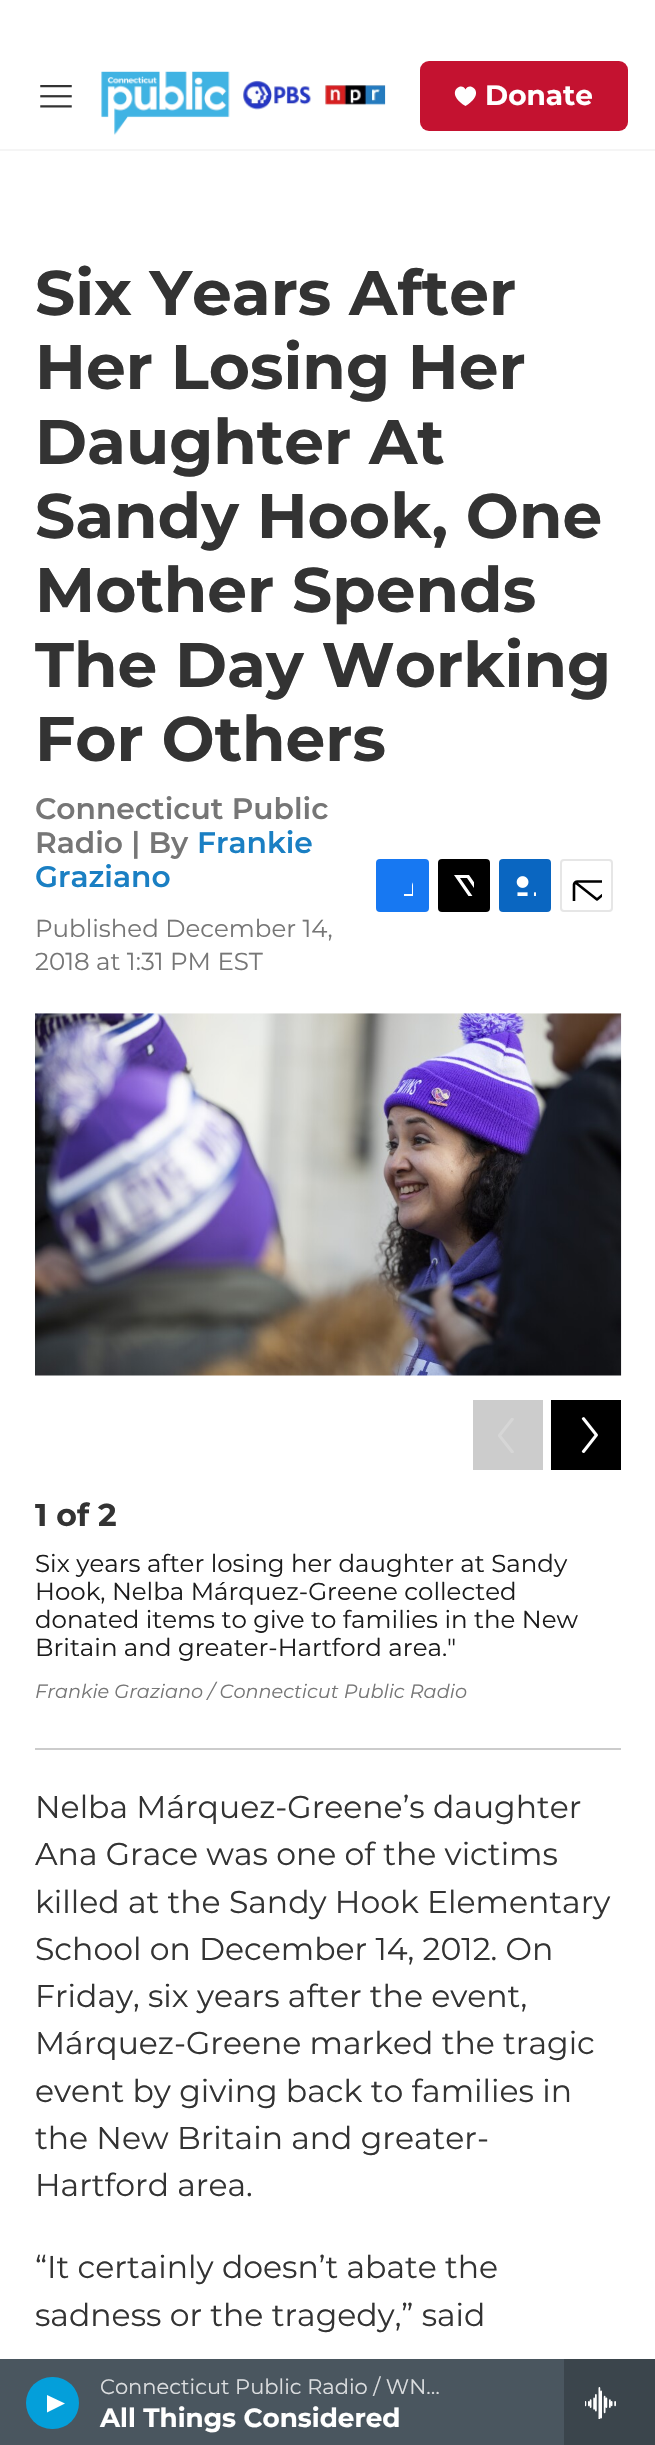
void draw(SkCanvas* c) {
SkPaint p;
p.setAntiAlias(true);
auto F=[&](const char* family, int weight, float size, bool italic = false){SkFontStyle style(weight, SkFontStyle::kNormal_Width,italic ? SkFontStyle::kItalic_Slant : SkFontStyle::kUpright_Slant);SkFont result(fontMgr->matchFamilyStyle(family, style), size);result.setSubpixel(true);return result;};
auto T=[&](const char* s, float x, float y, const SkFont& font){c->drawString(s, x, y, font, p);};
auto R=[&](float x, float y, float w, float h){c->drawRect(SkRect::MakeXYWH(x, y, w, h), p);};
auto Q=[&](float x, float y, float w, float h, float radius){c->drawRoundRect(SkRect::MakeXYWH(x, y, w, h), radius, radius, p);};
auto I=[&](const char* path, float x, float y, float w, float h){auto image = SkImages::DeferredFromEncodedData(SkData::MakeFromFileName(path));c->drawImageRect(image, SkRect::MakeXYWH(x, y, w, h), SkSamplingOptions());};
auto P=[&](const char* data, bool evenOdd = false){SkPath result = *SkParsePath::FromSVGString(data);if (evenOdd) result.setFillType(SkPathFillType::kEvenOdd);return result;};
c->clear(0xffffffff);
p.setColor(0xfff5f5f5);
R(0,149,655,2);
I("1.png",40,85,32,23);
I("2.png",101,71,285,64);
p.setColor(0xffc41230);
Q(420,61,208,70,9);
p.setColor(0xffffffff);
c->drawPath(P("M465.5 89.5c-3.5-9-22 3 0 16.5c22-13.5 3.5-25.5 0-16.5z"),p);
auto f1 = F("Montserrat",700,28);
T("Donate",485,105,f1);
p.setColor(0xff4a565f);
R(0,2359,564,86);
p.setColor(0xff049fda);
Q(26,2377,53,52,26);
p.setColor(0xffffffff);
c->drawPath(P("M47 2395l18 8.5l-18 9z"),p);
auto f2 = F("Montserrat",400,21);
p.setColor(0xffdbdddf);
T("Connecticut Public Radio / WN…",100,2394,f2);
auto f3 = F("Montserrat",700,26.25);
p.setColor(0xffffffff);
T("All Things Considered",100,2427,f3);
p.setColor(0xff3b454c);
R(564,2359,91,86);
I("3.png",585,2387,31,32);
auto f4 = F("Montserrat",700,63);
p.setColor(0xff333333);
T("Six Years After",35,315,f4);
T("Her Losing Her",35,389,f4);
T("Daughter At",35,464,f4);
T("Sandy Hook, One",35,538,f4);
T("Mother Spends",35,612,f4);
T("The Day Working",35,687,f4);
T("For Others",35,761,f4);
auto f5 = F("Montserrat",600,29.75);
p.setColor(0xff767676);
T("Connecticut Public",35,819,f5);
T("Radio | By",35,853,f5);
p.setColor(0xff1a7fc3);
T("Frankie",197,853,f5);
T("Graziano",35,887,f5);
auto f6 = F("Montserrat",400,24.5);
p.setColor(0xff767676);
T("Published December 14,",35,937,f6);
T("2018 at 1:31 PM EST",35,970,f6);
p.setColor(0xff1778f2);
Q(376,859,53,53,4);
c->save();
c->clipRect(SkRect::MakeXYWH(392,875,21,21));
p.setColor(0xffffffff);
c->drawPath(P("M421 912h-9v-9h-8v-9h8v-9c2-8.5 10-10 17-9v8c-9.5 0-8 2.5-8 10h8l-1 9h-7z"),p);
c->restore();
p.setColor(0xff000000);
Q(438,859,52,53,4);
c->save();
c->clipRect(SkRect::MakeXYWH(453,875,21,21));
p.setColor(0xffffffff);
c->drawPath(P("M484 897l6 8.5c0 1.5 0 3.5-.5 4.5l-22.5-32h-7l23.5 34h-4l-3.5-5l-4.5 5h-4.5l7-8l-20-29h15l13 19l8-9v5z"),p);
c->restore();
p.setColor(0xff0a66c1);
Q(499,859,52,53,4);
I("4.png",516,876,20,20);
p.setStroke(true);
p.setStrokeWidth(2);
p.setColor(0xffe6e6e6);
c->drawRoundRect(SkRect::MakeXYWH(561,860,51,51),3,3,p);
c->save();
c->clipRect(SkRect::MakeXYWH(571,870,31,31));
p.setStrokeWidth(2.6);
p.setStrokeCap(SkPaint::kRound_Cap);
p.setStrokeJoin(SkPaint::kRound_Join);
p.setColor(0xff000000);
c->drawPath(P("M619.5 908c0 2-1.5 3.5-3.5 3.5h-38.5c-2 0-3.5-1.5-3.5-3.5v-23.5c0-1.5 1.5-3 3.5-3h38.5c2 0 3.5 1.5 3.5 3zm-1.5-25.5l-21 17l-21.5-17"),p);
c->restore();
p.setStroke(false);
p.setColor(0xffcccccc);
R(35,1748,586,2);
R(473,1400,70,70);
I("5.png",498,1418,16,35);
p.setColor(0xff000000);
R(551,1400,70,70);
I("6.png",581,1417,17,36);
I("7.png",35,1013,587,363);
auto f7 = F("Montserrat",700,31.5);
p.setColor(0xff333333);
T("1 of 2",35,1526,f7);
p.setColor(0xff1c1c1c);
T("Six years after losing her daughter at Sandy",35,1572,f6);
T("Hook, Nelba Márquez-Greene collected",35,1600,f6);
T("donated items to give to families in the New",35,1628,f6);
T("Britain and greater-Hartford area.\"",35,1656,f6);
auto f8 = F("Montserrat",400,19.25,true);
p.setColor(0xff767676);
T("Frankie Graziano / Connecticut Public Radio",35,1698,f8);
auto f9 = F("Montserrat",400,31.5);
p.setColor(0xff333333);
T("Nelba Márquez-Greene’s daughter",35,1818,f9);
T("Ana Grace was one of the victims",35,1865,f9);
T("killed at the Sandy Hook Elementary",35,1913,f9);
T("School on December 14, 2012. On",35,1960,f9);
T("Friday, six years after the event,",35,2007,f9);
T("Márquez-Greene marked the tragic",35,2054,f9);
T("event by giving back to families in",35,2102,f9);
T("the New Britain and greater-",35,2149,f9);
T("Hartford area.",35,2196,f9);
T("“It certainly doesn’t abate the",35,2278,f9);
T("sadness or the tragedy,” said",35,2326,f9);
}
